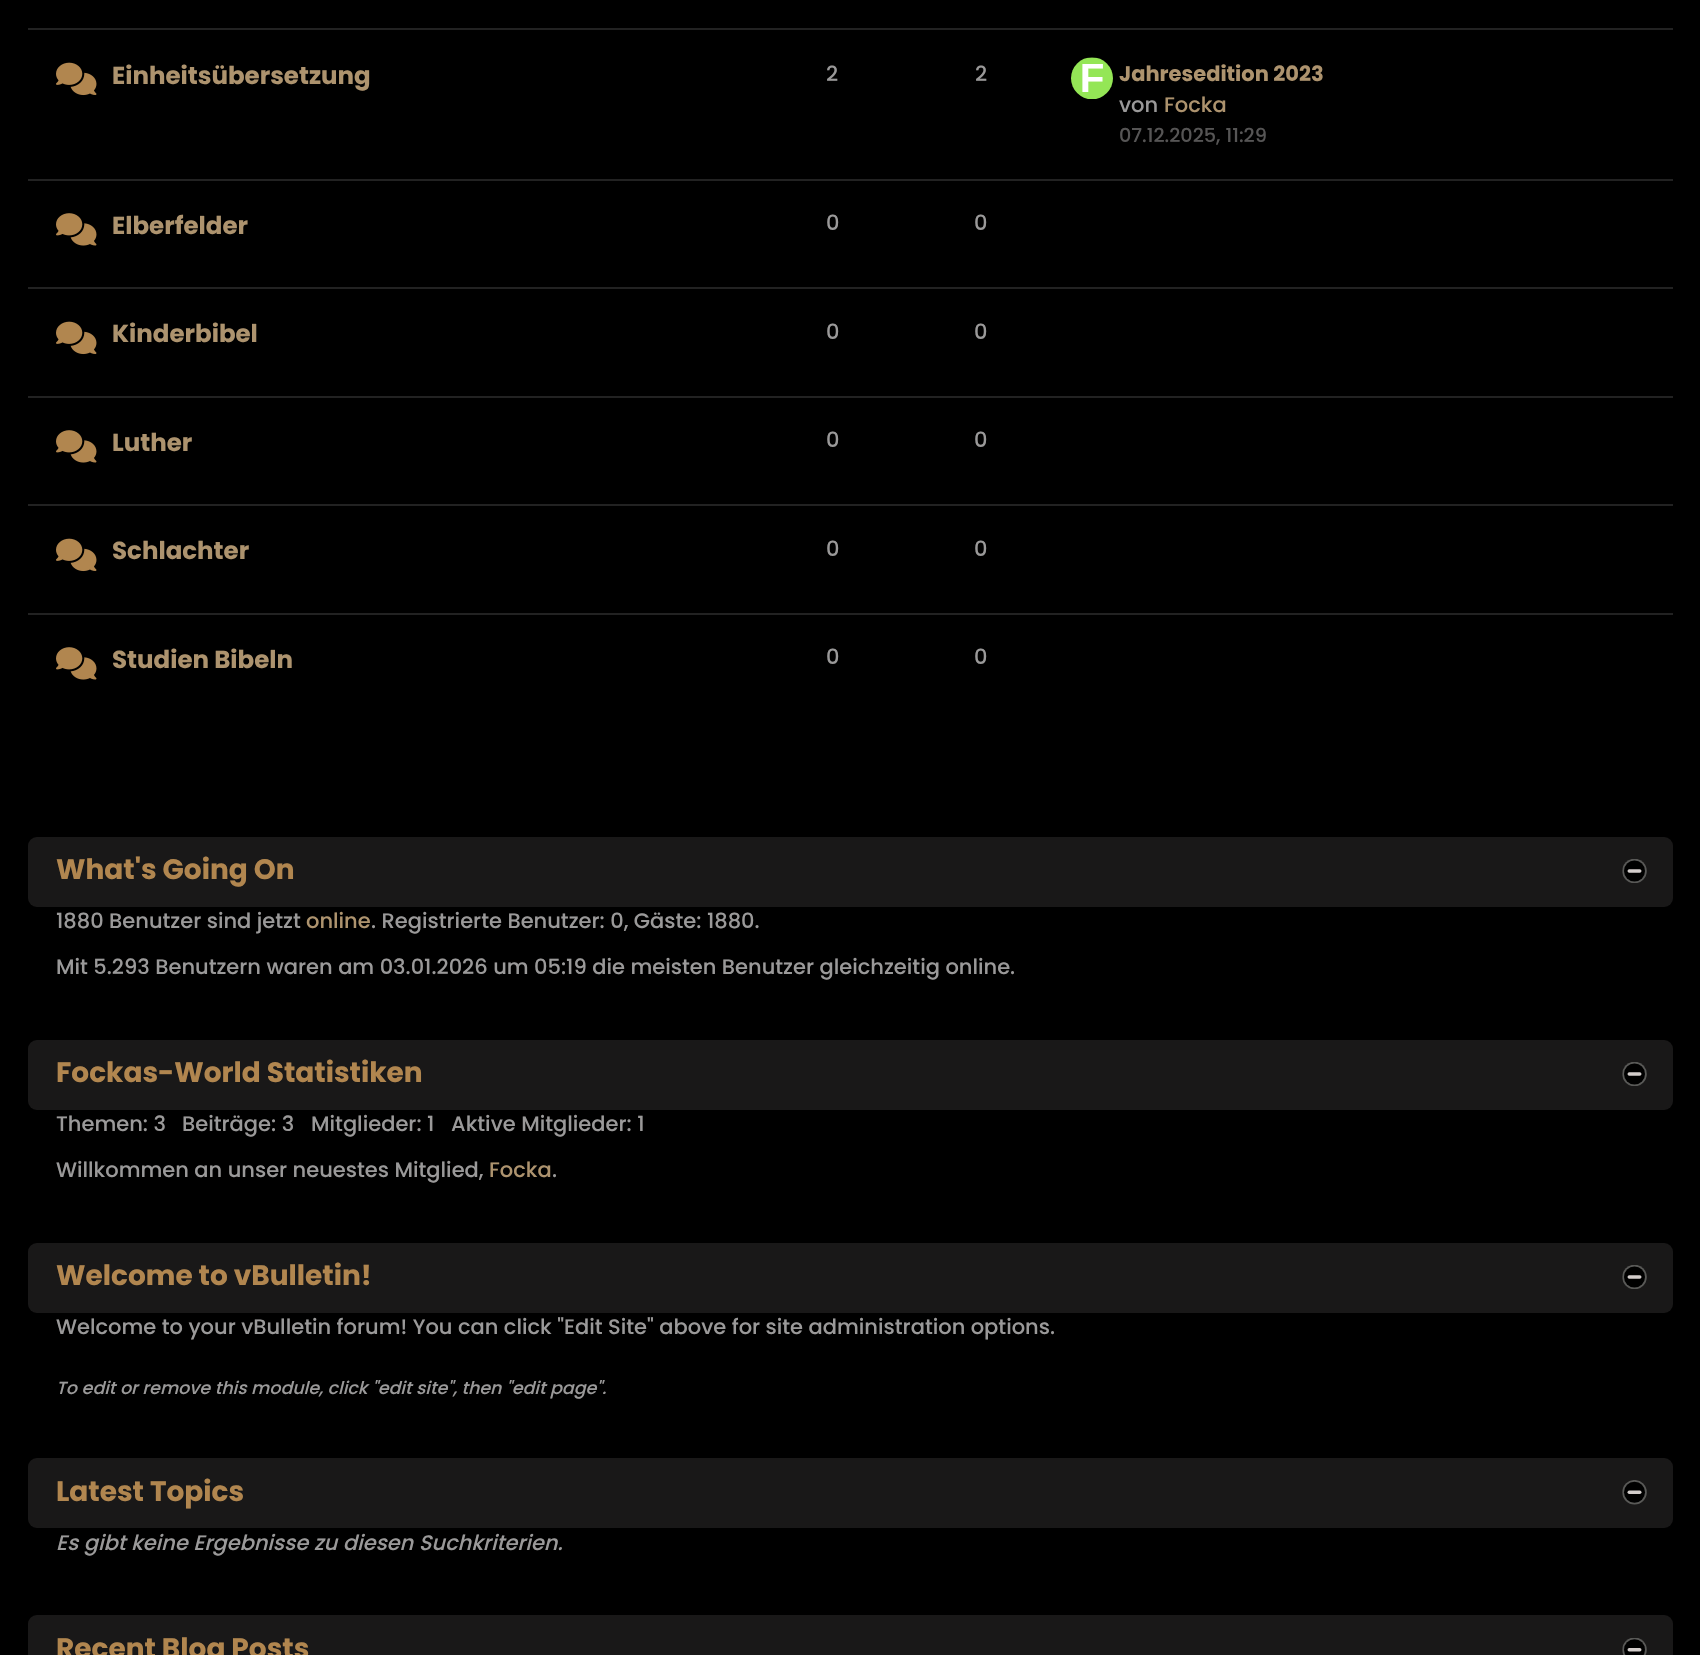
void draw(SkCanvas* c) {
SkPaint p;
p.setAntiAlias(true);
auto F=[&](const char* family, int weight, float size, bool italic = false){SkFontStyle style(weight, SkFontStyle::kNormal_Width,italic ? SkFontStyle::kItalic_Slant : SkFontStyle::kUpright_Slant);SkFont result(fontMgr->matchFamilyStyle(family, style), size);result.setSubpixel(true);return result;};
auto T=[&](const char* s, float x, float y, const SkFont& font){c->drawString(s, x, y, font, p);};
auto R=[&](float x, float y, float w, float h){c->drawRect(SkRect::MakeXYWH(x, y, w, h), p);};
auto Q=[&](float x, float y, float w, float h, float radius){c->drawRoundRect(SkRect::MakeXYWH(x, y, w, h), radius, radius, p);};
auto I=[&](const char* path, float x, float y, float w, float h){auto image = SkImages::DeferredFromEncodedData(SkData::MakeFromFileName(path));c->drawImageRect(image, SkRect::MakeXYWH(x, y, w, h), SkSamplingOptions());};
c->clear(0xff000000);
p.setColor(0xff222222);
R(28,28,1645,2);
I("1.png",56,62,41,34);
auto f1 = F("Poppins",700,24.5);
p.setColor(0xffad936e);
T("Einheitsübersetzung",112,84,f1);
auto f2 = F("Poppins",500,21);
p.setColor(0xff9a9999);
T("2",826,81,f2);
T("2",975,81,f2);
I("2.png",1071,57,42,42);
auto f3 = F("Poppins",700,21);
p.setColor(0xffad936e);
T("Jahresedition 2023",1119,81,f3);
p.setColor(0xff9a9999);
T("von",1119,112,f2);
p.setColor(0xffad936e);
T("Focka",1164,112,f2);
auto f4 = F("Poppins",500,19.25);
p.setColor(0xff565555);
T("07.12.2025, 11:29",1119,142,f4);
p.setColor(0xff222222);
R(28,179,1645,2);
I("3.png",56,213,41,33);
p.setColor(0xffad936e);
T("Elberfelder",112,234,f1);
p.setColor(0xff9a9999);
T("0",826,230,f2);
T("0",974,230,f2);
p.setColor(0xff222222);
R(28,287,1645,2);
I("1.png",56,321,41,34);
p.setColor(0xffad936e);
T("Kinderbibel",112,342,f1);
p.setColor(0xff9a9999);
T("0",826,339,f2);
T("0",974,339,f2);
p.setColor(0xff222222);
R(28,396,1645,2);
I("3.png",56,430,41,33);
p.setColor(0xffad936e);
T("Luther",112,451,f1);
p.setColor(0xff9a9999);
T("0",826,447,f2);
T("0",974,447,f2);
p.setColor(0xff222222);
R(28,504,1645,2);
I("1.png",56,538,41,34);
p.setColor(0xffad936e);
T("Schlachter",112,559,f1);
p.setColor(0xff9a9999);
T("0",826,556,f2);
T("0",974,556,f2);
p.setColor(0xff222222);
R(28,613,1645,2);
I("3.png",56,647,41,33);
p.setColor(0xffad936e);
T("Studien Bibeln",112,668,f1);
p.setColor(0xff9a9999);
T("0",826,664,f2);
T("0",974,664,f2);
p.setColor(0xff191818);
Q(28,837,1645,70,9);
auto f5 = F("Poppins",700,28);
p.setColor(0xffb1864f);
T("What's Going On",56,879,f5);
I("4.png",1622,859,25,24);
p.setColor(0xff9a9999);
T("1880 Benutzer sind jetzt",56,928,f2);
p.setColor(0xffad936e);
T("online",306,928,f2);
p.setColor(0xff9a9999);
T(". Registrierte Benutzer: 0, Gäste: 1880.",371,928,f2);
T("Mit 5.293 Benutzern waren am 03.01.2026 um 05:19 die meisten Benutzer gleichzeitig online.",56,974,f2);
p.setColor(0xff191818);
Q(28,1040,1645,70,9);
p.setColor(0xffb1864f);
T("Fockas-World Statistiken",56,1082,f5);
I("5.png",1622,1062,25,24);
p.setColor(0xff9a9999);
T("Themen: 3",56,1131,f2);
T("Beiträge: 3",182,1131,f2);
T("Mitglieder: 1",311,1131,f2);
T("Aktive Mitglieder: 1",451,1131,f2);
T("Willkommen an unser neuestes Mitglied,",56,1177,f2);
p.setColor(0xffad936e);
T("Focka",489,1177,f2);
p.setColor(0xff9a9999);
T(".",552,1177,f2);
p.setColor(0xff191818);
Q(28,1243,1645,70,9);
p.setColor(0xffb1864f);
T("Welcome to vBulletin!",56,1285,f5);
I("4.png",1622,1265,25,24);
p.setColor(0xff9a9999);
T("Welcome to your vBulletin forum! You can click \"Edit Site\" above for site administration options.",56,1334,f2);
auto f6 = F("Poppins",500,17.5,true);
T("To edit or remove this module, click \"edit site\", then \"edit page\".",56,1394,f6);
p.setColor(0xff191818);
Q(28,1458,1645,70,9);
p.setColor(0xffb1864f);
T("Latest Topics",56,1501,f5);
I("6.png",1622,1480,25,25);
auto f7 = F("Poppins",500,21,true);
p.setColor(0xff9a9999);
T("Es gibt keine Ergebnisse zu diesen Suchkriterien.",56,1550,f7);
p.setColor(0xff191818);
Q(28,1615,1645,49,9);
p.setColor(0xffb1864f);
T("Recent Blog Posts",56,1658,f5);
I("7.png",1622,1638,25,17);
}
